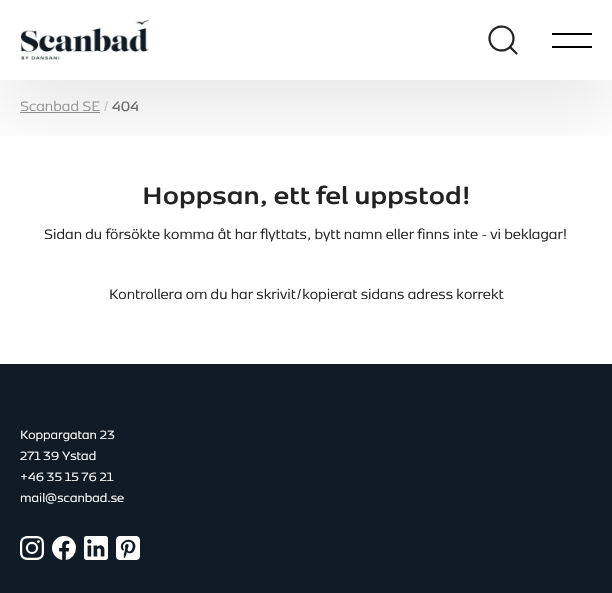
void draw(SkCanvas* c) {
SkPaint p;
p.setAntiAlias(true);
auto F=[&](const char* family, int weight, float size, bool italic = false){SkFontStyle style(weight, SkFontStyle::kNormal_Width,italic ? SkFontStyle::kItalic_Slant : SkFontStyle::kUpright_Slant);SkFont result(fontMgr->matchFamilyStyle(family, style), size);result.setSubpixel(true);return result;};
auto T=[&](const char* s, float x, float y, const SkFont& font){c->drawString(s, x, y, font, p);};
auto R=[&](float x, float y, float w, float h){c->drawRect(SkRect::MakeXYWH(x, y, w, h), p);};
auto I=[&](const char* path, float x, float y, float w, float h){auto image = SkImages::DeferredFromEncodedData(SkData::MakeFromFileName(path));c->drawImageRect(image, SkRect::MakeXYWH(x, y, w, h), SkSamplingOptions());};
c->clear(0xffffffff);
p.setColor(0xff959595);
R(20,112,80,1);
c->save();
c->clipRect(SkRect::MakeXYWH(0,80,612,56));
p.setColor(0x1a000000);
p.setMaskFilter(SkMaskFilter::MakeBlur(kNormal_SkBlurStyle, 37.5));
c->drawRect(SkRect::MakeXYWH(0,25,612,80),p);
p.setMaskFilter(nullptr);
c->restore();
I("1.png",20,20,130,40);
I("2.png",488,25,30,30);
p.setColor(0xff000000);
R(552,33,40,2);
R(552,46,40,2);
auto f1 = F("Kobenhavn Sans",400,16);
p.setColor(0xff959595);
T("Scanbad SE",20,111,f1);
p.setColor(0xffbcbcbc);
T("/",103,111,f1);
auto f2 = F("Kobenhavn Sans",600,16);
p.setColor(0xff6a6a6a);
T("404",112,111,f2);
auto f3 = F("Kobenhavn Sans",700,28);
p.setColor(0xff232323);
T("Hoppsan, ett fel uppstod!",142,204,f3);
T("Sidan du försökte komma åt har flyttats, bytt namn eller finns inte - vi beklagar!",44,239,f1);
T("Kontrollera om du har skrivit/kopierat sidans adress korrekt",109,299,f1);
p.setColor(0xff111b26);
R(0,364,612,229);
auto f4 = F("Kobenhavn Sans",400,14);
p.setColor(0xffffffff);
T("Koppargatan 23",20,439,f4);
T("271 39 Ystad",20,460,f4);
T("+46 35 15 76 21",20,481,f4);
T("mail@scanbad.se",20,502,f4);
I("3.png",20,536,24,24);
I("4.png",52,536,24,24);
I("5.png",84,536,24,24);
I("6.png",116,536,24,24);
}
